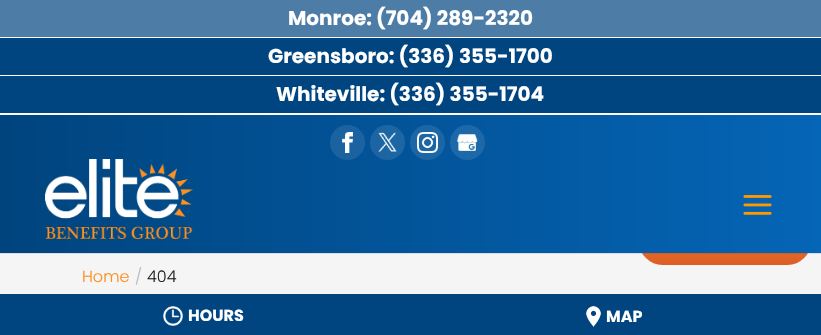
void draw(SkCanvas* c) {
SkPaint p;
p.setAntiAlias(true);
auto F=[&](const char* family, int weight, float size, bool italic = false){SkFontStyle style(weight, SkFontStyle::kNormal_Width,italic ? SkFontStyle::kItalic_Slant : SkFontStyle::kUpright_Slant);SkFont result(fontMgr->matchFamilyStyle(family, style), size);result.setSubpixel(true);return result;};
auto T=[&](const char* s, float x, float y, const SkFont& font){c->drawString(s, x, y, font, p);};
auto R=[&](float x, float y, float w, float h){c->drawRect(SkRect::MakeXYWH(x, y, w, h), p);};
auto Q=[&](float x, float y, float w, float h, float radius){c->drawRoundRect(SkRect::MakeXYWH(x, y, w, h), radius, radius, p);};
auto I=[&](const char* path, float x, float y, float w, float h){auto image = SkImages::DeferredFromEncodedData(SkData::MakeFromFileName(path));c->drawImageRect(image, SkRect::MakeXYWH(x, y, w, h), SkSamplingOptions());};
c->clear(0xfff5f5f5);
auto f1 = F("Poppins",300,16);
p.setColor(0xfffd8e1e);
T("Home",82,282,f1);
p.setColor(0xffbbbbbb);
T("/",135,282,f1);
p.setColor(0xff222222);
T("404",147,282,f1);
p.setColor(0xff4d7da6);
R(0,0,821,37);
p.setColor(0xffffffff);
R(0,37,821,1);
auto f2 = F("Poppins",700,20);
T("Monroe: (704) 289-2320",288,25,f2);
p.setColor(0xff004580);
R(0,38,821,37);
p.setColor(0xffffffff);
R(0,75,821,1);
T("Greensboro: (336) 355-1700",268,63,f2);
p.setColor(0xff004580);
R(0,76,821,37);
p.setColor(0xffffffff);
R(0,113,821,2);
T("Whiteville: (336) 355-1704",276,101,f2);
{
const SkColor colors[] = {0xfff28d2a,0xffdd5c25};
const float stops[] = {0,1};
const SkPoint ends[] = {{725,218}, {725,265}};
p.setShader(SkGradientShader::MakeLinear(ends, colors, stops, 2, SkTileMode::kClamp));
p.setAlpha(255);
}
Q(639,218,172,47,23.5);
p.setShader(nullptr);
p.setColor(0xff004580);
R(0,294,821,41);
I("1.png",163,306,20,20);
auto f3 = F("Poppins",700,16);
p.setColor(0xffffffff);
T("HOURS",188,321,f3);
I("2.png",586,306,15,21);
T("MAP",606,322,f3);
p.setColor(0x1a000000);
R(0,253,821,1);
{
const SkColor colors[] = {0xff00447e,0xff0565b6};
const float stops[] = {0,1};
const SkPoint ends[] = {{0,184}, {821,184}};
p.setShader(SkGradientShader::MakeLinear(ends, colors, stops, 2, SkTileMode::kClamp));
p.setAlpha(255);
}
R(0,115,821,138);
p.setShader(nullptr);
p.setColor(0xff1b63a0);
c->drawCircle(347.5,142.5,17.5,p);
I("3.png",342,132,11,21);
p.setColor(0x1affffff);
c->drawCircle(387.5,142.5,17.5,p);
I("4.png",378,132,19,20);
p.setColor(0xff1c66a5);
c->drawCircle(427.5,142.5,17.5,p);
I("5.png",417,132,21,21);
p.setColor(0xff1c68a8);
c->drawCircle(467.5,142.5,17.5,p);
I("6.png",457,134,21,17);
I("7.png",45,159,148,80);
I("8.png",743,195,29,20);
}
